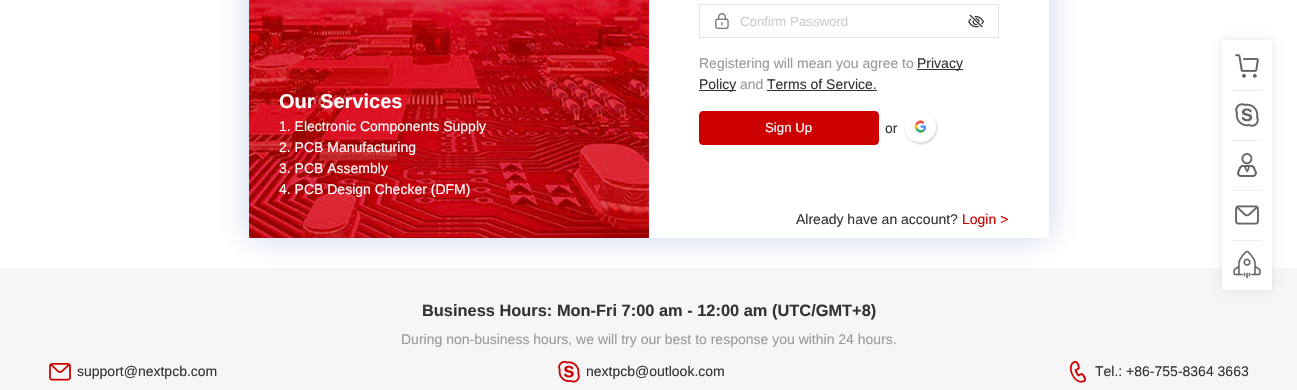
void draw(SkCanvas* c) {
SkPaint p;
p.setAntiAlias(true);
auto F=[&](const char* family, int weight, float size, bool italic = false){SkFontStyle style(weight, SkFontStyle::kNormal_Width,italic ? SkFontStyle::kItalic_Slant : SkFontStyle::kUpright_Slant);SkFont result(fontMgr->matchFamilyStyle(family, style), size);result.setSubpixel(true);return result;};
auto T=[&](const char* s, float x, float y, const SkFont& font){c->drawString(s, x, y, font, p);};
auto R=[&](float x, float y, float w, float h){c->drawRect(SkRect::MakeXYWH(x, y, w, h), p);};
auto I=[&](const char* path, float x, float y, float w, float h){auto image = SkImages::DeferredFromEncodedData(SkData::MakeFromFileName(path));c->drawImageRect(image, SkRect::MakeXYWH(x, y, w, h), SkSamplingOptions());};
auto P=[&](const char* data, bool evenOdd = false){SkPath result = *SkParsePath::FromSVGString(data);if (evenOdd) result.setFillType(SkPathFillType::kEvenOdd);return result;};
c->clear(0xffffffff);
p.setColor(0xfff6f6f6);
R(0,268,1297,122);
c->save();
c->clipPath(P("M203 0h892v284h-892zm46-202h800v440h-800z",true),true);
p.setColor(0x3302309d);
p.setMaskFilter(SkMaskFilter::MakeBlur(kNormal_SkBlurStyle, 15));
c->drawRect(SkRect::MakeXYWH(249,-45,800,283),p);
p.setMaskFilter(nullptr);
c->restore();
I("1.png",249,0,400,238);
auto f1 = F("Liberation Sans",700,20);
p.setColor(0xffffffff);
T("Our Services",279,108,f1);
auto f2 = F("Liberation Sans",400,14);
T("1. Electronic Components Supply",279,131,f2);
T("2. PCB Manufacturing",279,152,f2);
T("3. PCB Assembly",279,173,f2);
T("4. PCB Design Checker (DFM)",279,194,f2);
p.setStroke(true);
p.setStrokeWidth(1);
p.setColor(0xffe5e5e5);
c->drawRect(SkRect::MakeXYWH(699.5,4.5,299,33),p);
I("2.png",715,13,14,16);
auto f3 = F("Liberation Sans",400,13.25);
p.setStroke(false);
p.setColor(0xffcccccc);
T("Confirm Password",740,26,f3);
I("3.png",968,14,16,14);
p.setColor(0xff999999);
T("Registering will mean you agree to",699,68,f2);
p.setColor(0xff333333);
R(917,69,46,1);
T("Privacy",917,68,f2);
R(699,90,37,1);
T("Policy",699,89,f2);
p.setColor(0xff999999);
T("and",740,89,f2);
p.setColor(0xff333333);
T("Terms of Service.",767,89,f2);
R(767,90,110,1);
p.setColor(0xffcc0000);
c->drawRoundRect(SkRect::MakeXYWH(699.5,111.5,179,33),3.5,3.5,p);
p.setStroke(true);
c->drawRoundRect(SkRect::MakeXYWH(699.5,111.5,179,33),3.5,3.5,p);
p.setStroke(false);
p.setColor(0xffffffff);
T("Sign Up",765,132,f3);
p.setColor(0xff333333);
T("or",885,133,f2);
I("4.png",904,112,34,33);
T("Already have an account?",796,224,f2);
p.setColor(0xffcc0000);
T("Login >",962,224,f2);
p.setColor(0x1a000000);
p.setMaskFilter(SkMaskFilter::MakeBlur(kNormal_SkBlurStyle, 4));
c->drawRect(SkRect::MakeXYWH(1222,40,50,250),p);
p.setMaskFilter(nullptr);
p.setColor(0xffffffff);
R(1222,40,50,250);
I("5.png",1235,54,24,24);
p.setColor(0xffededed);
R(1232,90,30,1);
I("6.png",1235,103,24,24);
R(1232,140,30,1);
I("7.png",1237,153,20,24);
R(1232,190,30,1);
I("8.png",1235,205,24,20);
R(1232,240,30,1);
I("9.png",1233,250,28,29);
auto f4 = F("Liberation Sans",700,16.4);
p.setColor(0xff333333);
T("Business Hours: Mon-Fri 7:00 am - 12:00 am (UTC/GMT+8)",422,316,f4);
p.setColor(0xff999999);
T("During non-business hours, we will try our best to response you within 24 hours.",401,344,f2);
I("10.png",49,363,22,18);
p.setColor(0xff333333);
T("support@nextpcb.com",77,376,f2);
I("11.png",558,361,22,22);
T("nextpcb@outlook.com",586,376,f2);
I("12.png",1069,360,18,23);
T("Tel.: +86-755-8364 3663",1095,376,f2);
}
